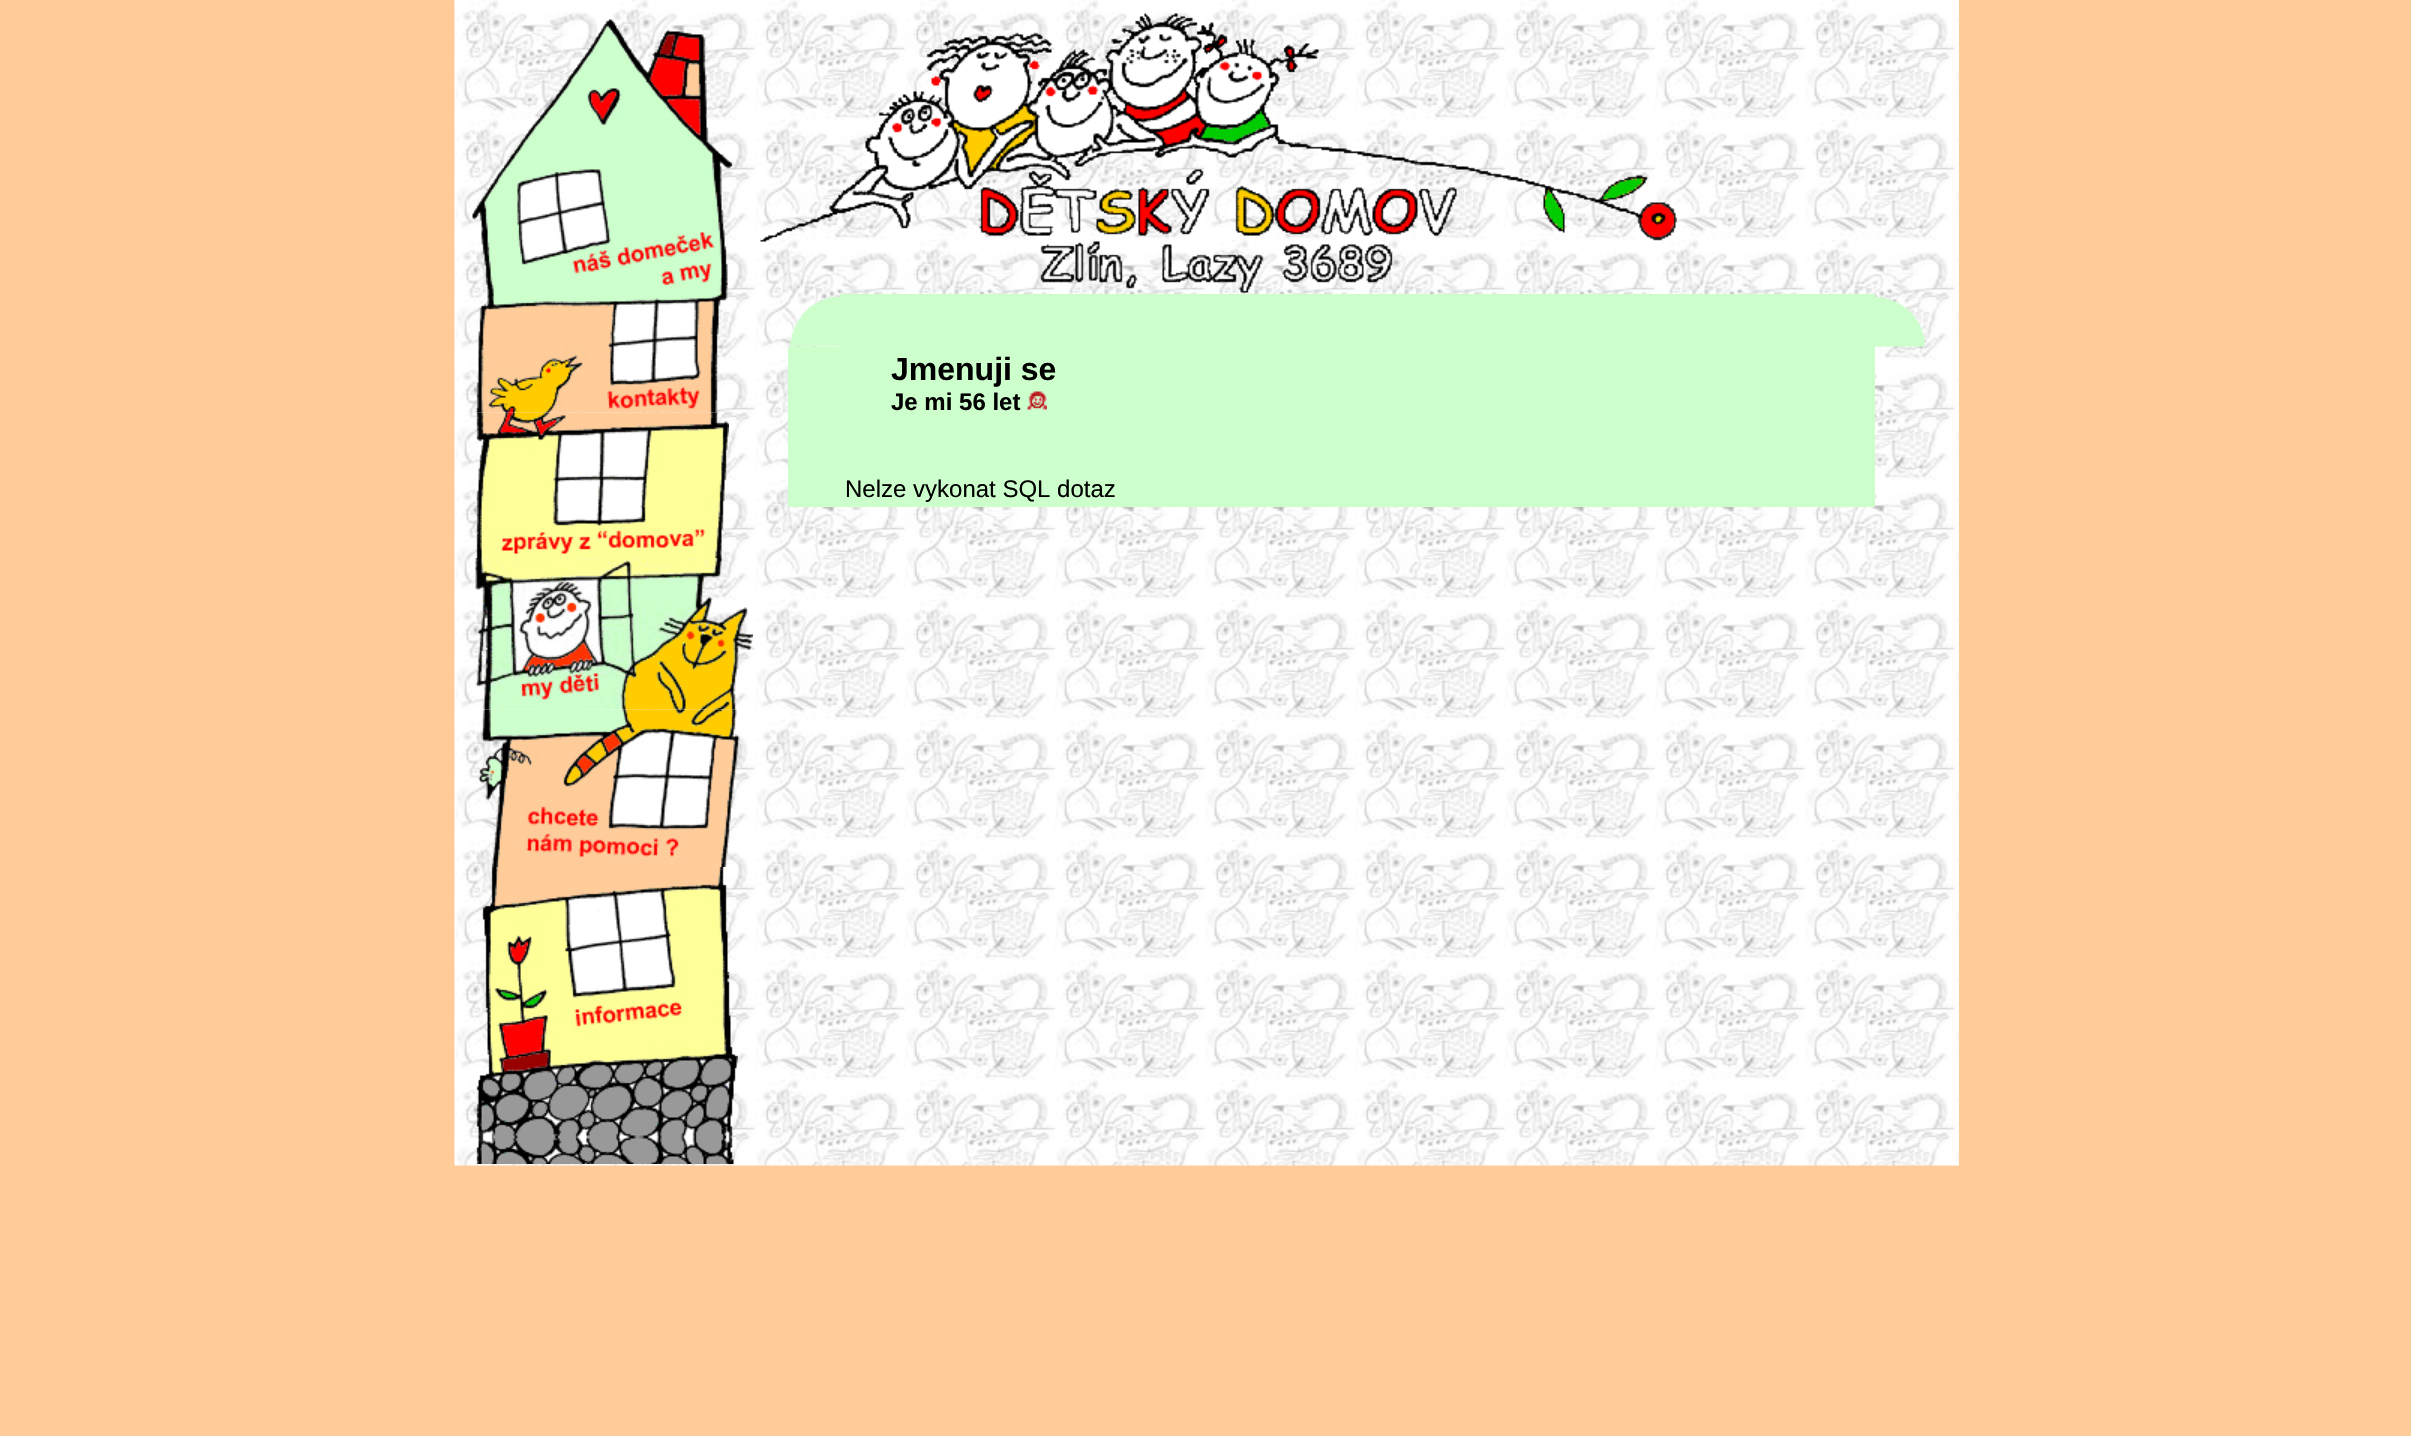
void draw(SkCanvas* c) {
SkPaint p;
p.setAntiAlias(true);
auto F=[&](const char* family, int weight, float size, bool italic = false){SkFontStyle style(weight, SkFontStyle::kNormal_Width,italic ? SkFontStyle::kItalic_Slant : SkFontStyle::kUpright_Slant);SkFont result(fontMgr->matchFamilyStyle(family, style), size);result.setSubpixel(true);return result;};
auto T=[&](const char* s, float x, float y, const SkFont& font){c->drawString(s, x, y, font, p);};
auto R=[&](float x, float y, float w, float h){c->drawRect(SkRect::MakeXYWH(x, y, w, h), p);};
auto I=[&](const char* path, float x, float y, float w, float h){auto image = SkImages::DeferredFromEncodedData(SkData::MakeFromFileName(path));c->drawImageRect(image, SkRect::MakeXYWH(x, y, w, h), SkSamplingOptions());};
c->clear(0xffffcc99);
I("1.png",454,0,1505,1166);
I("2.png",472,19,261,266);
I("3.png",476,285,252,128);
I("4.png",476,412,253,146);
I("5.png",475,558,278,152);
I("6.png",478,709,262,158);
I("7.png",476,867,262,270);
I("8.png",476,1137,258,27);
I("9.png",760,13,917,280);
I("10.png",790,297,50,50);
p.setColor(0xffccffcc);
R(840,294,1035,53);
I("11.png",1875,297,50,50);
R(788,347,1087,160);
auto f1 = F("Liberation Sans",700,32);
p.setColor(0xff000000);
T("Jmenuji se",891,380,f1);
auto f2 = F("Liberation Sans",700,24);
T("Je mi 56 let",891,410,f2);
I("12.png",1027,391,20,19);
auto f3 = F("Liberation Sans",400,24);
T("Nelze vykonat SQL dotaz",845,497,f3);
}
